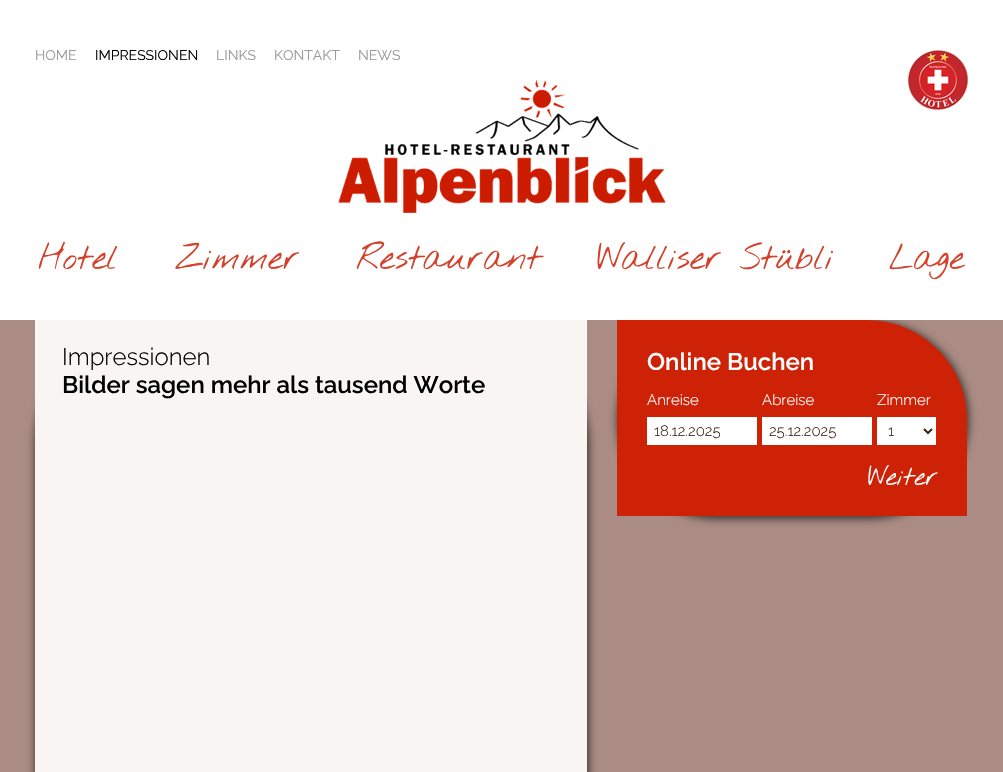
void draw(SkCanvas* c) {
SkPaint p;
p.setAntiAlias(true);
auto F=[&](const char* family, int weight, float size, bool italic = false){SkFontStyle style(weight, SkFontStyle::kNormal_Width,italic ? SkFontStyle::kItalic_Slant : SkFontStyle::kUpright_Slant);SkFont result(fontMgr->matchFamilyStyle(family, style), size);result.setSubpixel(true);return result;};
auto T=[&](const char* s, float x, float y, const SkFont& font){c->drawString(s, x, y, font, p);};
auto R=[&](float x, float y, float w, float h){c->drawRect(SkRect::MakeXYWH(x, y, w, h), p);};
auto I=[&](const char* path, float x, float y, float w, float h){auto image = SkImages::DeferredFromEncodedData(SkData::MakeFromFileName(path));c->drawImageRect(image, SkRect::MakeXYWH(x, y, w, h), SkSamplingOptions());};
auto P=[&](const char* data, bool evenOdd = false){SkPath result = *SkParsePath::FromSVGString(data);if (evenOdd) result.setFillType(SkPathFillType::kEvenOdd);return result;};
c->clear(0xffffffff);
auto f1 = F("Raleway",400,14);
p.setColor(0xff999999);
T("HOME",35,60,f1);
p.setColor(0xff000000);
T("IMPRESSIONEN",95,60,f1);
p.setColor(0xff999999);
T("LINKS",216,60,f1);
T("KONTAKT",274,60,f1);
T("NEWS",358,60,f1);
I("1.png",908,50,60,60);
I("2.png",338,80,328,133);
auto f2 = F("Nothing You Could Do",400,35);
p.setColor(0xffd44029);
T("Hotel",38,269,f2);
T("Zimmer",174,269,f2);
T("Restaurant",356,269,f2);
T("Walliser Stübli",597,269,f2);
T("Lage",889,269,f2);
p.setColor(0xffaa8c84);
R(0,320,1003,452);
c->save();
c->clipRect(SkRect::MakeXYWH(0,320,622,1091));
p.setColor(0xbf000000);
p.setMaskFilter(SkMaskFilter::MakeBlur(kNormal_SkBlurStyle, 5));
c->drawRoundRect(SkRect::MakeXYWH(36,322,552,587),122,122,p);
p.setMaskFilter(nullptr);
c->restore();
p.setColor(0xfff9f5f2);
c->drawPath(P("M35 320h552v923c0 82-55 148-122 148h-430z"),p);
auto f3 = F("Raleway",300,24);
p.setColor(0xff000000);
T("Impressionen",62,365,f3);
auto f4 = F("Raleway",600,24);
T("Bilder sagen mehr als tausend Worte",62,393,f4);
c->save();
c->clipRect(SkRect::MakeXYWH(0,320,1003,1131));
p.setColor(0xbf000000);
p.setMaskFilter(SkMaskFilter::MakeBlur(kNormal_SkBlurStyle, 5));
c->drawRoundRect(SkRect::MakeXYWH(618,322,350,196),100,100,p);
p.setMaskFilter(nullptr);
c->restore();
p.setColor(0xffce2207);
c->drawPath(P("M617 320h250c55 0 100 45 100 100v96h-350z"),p);
p.setColor(0xffffffff);
T("Online Buchen",647,370,f4);
auto f5 = F("Raleway",300,15);
T("Anreise",647,405,f5);
R(647,417,110,28);
p.setColor(0xff3c2519);
T("18.12.2025",654,436,f5);
p.setColor(0xffffffff);
T("Abreise",762,405,f5);
R(762,417,110,28);
p.setColor(0xff3c2519);
T("25.12.2025",769,436,f5);
p.setColor(0xffffffff);
T("Zimmer",877,405,f5);
R(877,417,59,28);
p.setStroke(true);
p.setStrokeWidth(2);
p.setColor(0xff3c2519);
c->drawPath(P("M924 429l4 4l4-4"),p);
p.setStroke(false);
T("1",888,436,f5);
auto f6 = F("Nothing You Could Do",400,26);
p.setColor(0xffffffff);
T("Weiter",868,485,f6);
}
